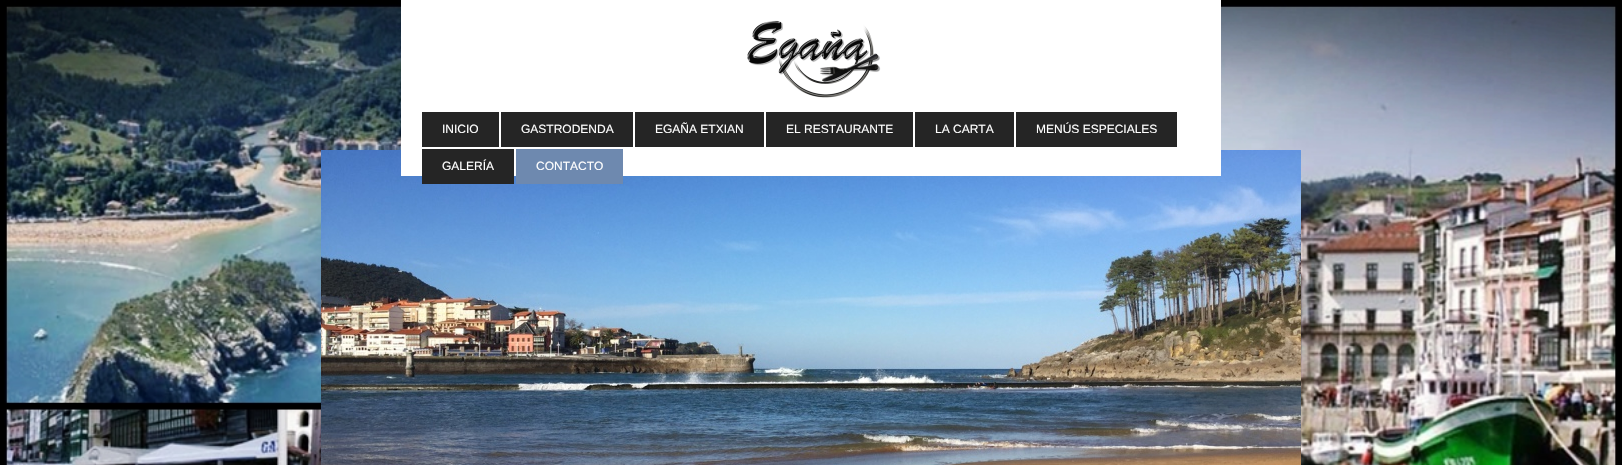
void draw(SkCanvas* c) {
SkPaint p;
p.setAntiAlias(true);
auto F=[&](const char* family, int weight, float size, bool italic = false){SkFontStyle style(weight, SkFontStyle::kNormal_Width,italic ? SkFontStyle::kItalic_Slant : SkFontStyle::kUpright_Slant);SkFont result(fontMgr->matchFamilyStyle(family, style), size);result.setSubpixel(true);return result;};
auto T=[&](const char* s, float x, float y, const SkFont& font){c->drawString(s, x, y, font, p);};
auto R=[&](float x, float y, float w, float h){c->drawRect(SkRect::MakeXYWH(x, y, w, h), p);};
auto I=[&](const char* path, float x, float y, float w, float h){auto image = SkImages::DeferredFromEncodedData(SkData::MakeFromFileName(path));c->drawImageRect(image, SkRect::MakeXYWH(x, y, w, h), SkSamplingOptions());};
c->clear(0xffffffff);
I("1.png",0,0,1622,465);
I("3.png",321,150,980,315);
p.setColor(0xffffffff);
R(401,0,820,176);
I("2.png",747,20,134,78);
p.setColor(0xff252525);
R(422,112,77,35);
auto f1 = F("Liberation Sans",400,12);
p.setColor(0xffffffff);
T("INICIO",442,133,f1);
p.setColor(0xff252525);
R(501,112,132,35);
p.setColor(0xffffffff);
T("GASTRODENDA",521,133,f1);
p.setColor(0xff252525);
R(635,112,129,35);
p.setColor(0xffffffff);
T("EGAÑA ETXIAN",655,133,f1);
p.setColor(0xff252525);
R(766,112,147,35);
p.setColor(0xffffffff);
T("EL RESTAURANTE",786,133,f1);
p.setColor(0xff252525);
R(915,112,99,35);
p.setColor(0xffffffff);
T("LA CARTA",935,133,f1);
p.setColor(0xff252525);
R(1016,112,161,35);
p.setColor(0xffffffff);
T("MENÚS ESPECIALES",1036,133,f1);
p.setColor(0xff252525);
R(422,149,92,35);
p.setColor(0xffffffff);
T("GALERÍA",442,170,f1);
p.setColor(0xff6e89af);
R(516,149,107,35);
p.setColor(0xffffffff);
T("CONTACTO",536,170,f1);
}
